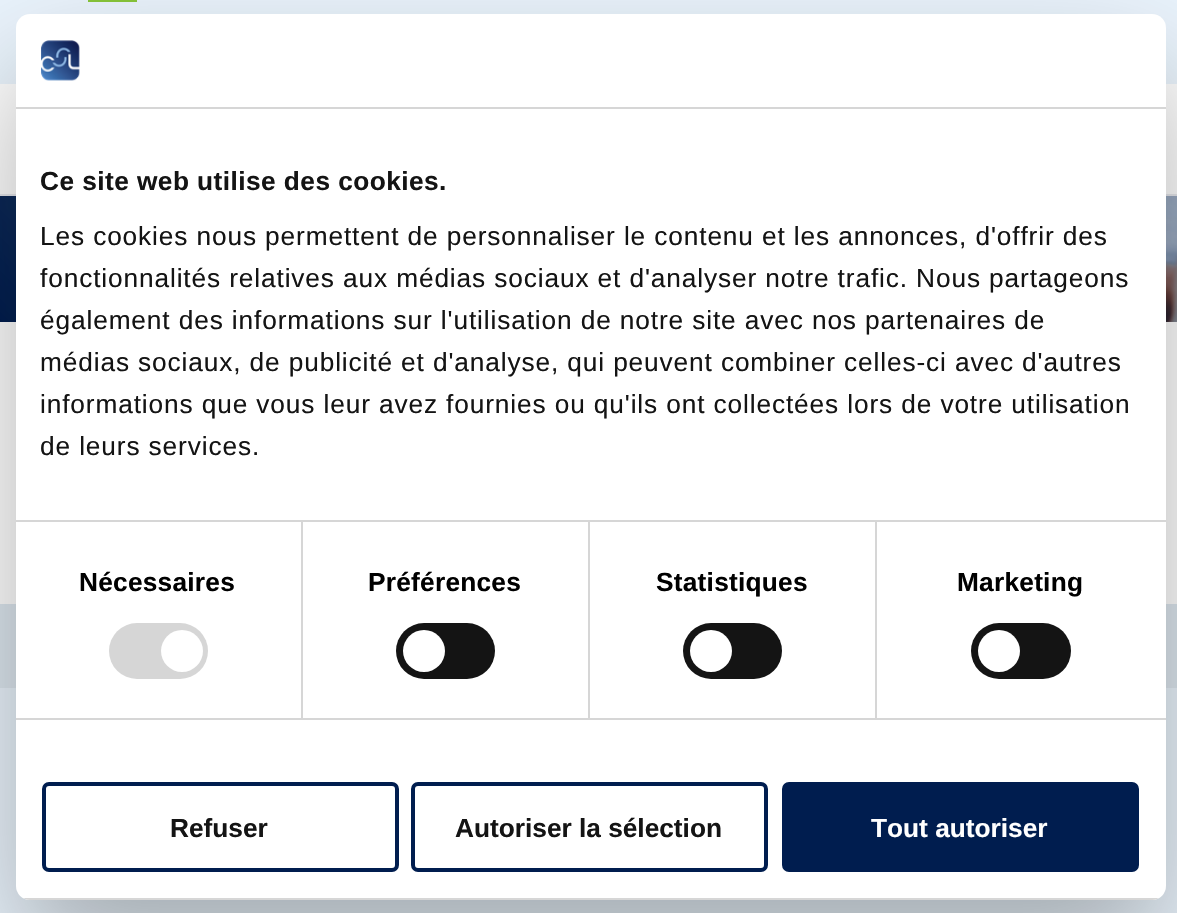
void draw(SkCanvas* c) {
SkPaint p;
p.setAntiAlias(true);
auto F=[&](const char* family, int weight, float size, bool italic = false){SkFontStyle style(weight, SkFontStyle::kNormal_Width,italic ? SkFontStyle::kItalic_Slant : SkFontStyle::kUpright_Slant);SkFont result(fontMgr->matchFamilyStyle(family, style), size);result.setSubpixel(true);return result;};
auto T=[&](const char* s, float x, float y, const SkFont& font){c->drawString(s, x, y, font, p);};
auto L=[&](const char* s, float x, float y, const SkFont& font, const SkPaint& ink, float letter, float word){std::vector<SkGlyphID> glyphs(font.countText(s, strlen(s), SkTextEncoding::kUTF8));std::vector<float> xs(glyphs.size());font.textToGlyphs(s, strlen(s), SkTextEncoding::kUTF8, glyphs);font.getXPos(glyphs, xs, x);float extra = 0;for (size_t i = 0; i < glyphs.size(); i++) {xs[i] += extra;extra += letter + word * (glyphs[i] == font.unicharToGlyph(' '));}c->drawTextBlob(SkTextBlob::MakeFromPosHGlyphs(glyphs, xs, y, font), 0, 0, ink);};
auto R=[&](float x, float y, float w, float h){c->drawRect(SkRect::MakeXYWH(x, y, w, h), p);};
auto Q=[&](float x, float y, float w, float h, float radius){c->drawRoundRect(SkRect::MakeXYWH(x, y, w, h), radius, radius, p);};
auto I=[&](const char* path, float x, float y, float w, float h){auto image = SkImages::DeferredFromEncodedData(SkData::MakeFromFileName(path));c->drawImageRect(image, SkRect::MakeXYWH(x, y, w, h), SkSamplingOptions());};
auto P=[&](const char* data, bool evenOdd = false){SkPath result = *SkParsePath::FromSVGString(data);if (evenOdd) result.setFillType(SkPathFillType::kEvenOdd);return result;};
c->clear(0xffffffff);
p.setColor(0xffe8e9ee);
R(0,194,1177,2);
p.setColor(0xffeaf4fd);
R(0,0,1177,84);
p.setColor(0xff88c639);
R(88,0,49,2);
I("2.png",0,196,1177,126);
{
const SkColor colors[] = {0xff001d4f,0x40001d4f};
const float stops[] = {0,1};
const SkPoint ends[] = {{263,585}, {915,-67}};
p.setShader(SkGradientShader::MakeLinear(ends, colors, stops, 2, SkTileMode::kClamp));
p.setAlpha(255);
}
R(0,196,1177,126);
p.setShader(nullptr);
p.setColor(0xffeaf4fd);
R(0,688,1177,225);
p.setColor(0xffdee8f0);
R(0,604,1177,84);
p.setColor(0x4d000000);
p.setMaskFilter(SkMaskFilter::MakeBlur(kNormal_SkBlurStyle, 59.5));
c->drawRoundRect(SkRect::MakeXYWH(16,70,1150,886),14,14,p);
p.setMaskFilter(nullptr);
p.setColor(0xffffffff);
Q(16,14,1150,886,14);
p.setColor(0xffd6d6d6);
R(16,107,1150,2);
I("1.png",41,40,39,41);
R(16,520,1150,2);
auto f1 = F("Liberation Sans",700,26.25);
p.setColor(0xff141414);
L("Ce site web utilise des cookies.",40,190,f1,p,.45,0);
auto f2 = F("Liberation Sans",400,26.25);
L("Les cookies nous permettent de personnaliser le contenu et les annonces, d'offrir des",40,245,f2,p,.88,0);
L("fonctionnalités relatives aux médias sociaux et d'analyser notre trafic. Nous partageons",40,287,f2,p,.88,0);
L("également des informations sur l'utilisation de notre site avec nos partenaires de",40,329,f2,p,.88,0);
L("médias sociaux, de publicité et d'analyse, qui peuvent combiner celles-ci avec d'autres",40,371,f2,p,.88,0);
L("informations que vous leur avez fournies ou qu'ils ont collectées lors de votre utilisation",40,413,f2,p,.88,0);
L("de leurs services.",40,455,f2,p,.88,0);
p.setColor(0xffd6d6d6);
R(16,718,1150,2);
R(301,522,2,196);
p.setColor(0xff000000);
L("Nécessaires",79,591,f1,p,.25,0);
p.setColor(0xffd6d6d6);
Q(109,623,99,56,28);
p.setColor(0xffffffff);
c->drawCircle(182,651,21,p);
p.setColor(0xffd6d6d6);
R(588,522,2,196);
p.setColor(0xff000000);
L("Préférences",368,591,f1,p,.25,0);
p.setColor(0xff141414);
Q(396,623,99,56,28);
p.setColor(0xffffffff);
c->drawCircle(424,651,21,p);
p.setColor(0xffd6d6d6);
R(875,522,2,196);
p.setColor(0xff000000);
L("Statistiques",656,591,f1,p,.25,0);
p.setColor(0xff141414);
Q(683,623,99,56,28);
p.setColor(0xffffffff);
c->drawCircle(711,651,21,p);
p.setColor(0xff000000);
L("Marketing",957,591,f1,p,.25,0);
p.setColor(0xff141414);
Q(971,623,100,56,28);
p.setColor(0xffffffff);
c->drawCircle(999,651,21,p);
c->save();
c->clipPath(P("M30 14h1122c7.5 0 14 6.5 14 14v858c0 7.5-6.5 14-14 14h-1122c-7.5 0-14-6.5-14-14v-858c0-7.5 6.5-14 14-14z"),true);
p.setColor(0xffd6d6d6);
R(16,898,1150,2);
c->restore();
p.setStroke(true);
p.setStrokeWidth(4);
p.setColor(0xff001d4f);
c->drawRoundRect(SkRect::MakeXYWH(44,784,353,86),5,5,p);
p.setStroke(false);
p.setColor(0xff141414);
T("Refuser",170,837,f1);
p.setStroke(true);
p.setColor(0xff001d4f);
c->drawRoundRect(SkRect::MakeXYWH(413,784,353,86),5,5,p);
p.setStroke(false);
p.setColor(0xff141414);
T("Autoriser la sélection",455,837,f1);
p.setColor(0xff001d4f);
c->drawRoundRect(SkRect::MakeXYWH(784,784,353,86),5,5,p);
p.setStroke(true);
c->drawRoundRect(SkRect::MakeXYWH(784,784,353,86),5,5,p);
p.setStroke(false);
p.setColor(0xffffffff);
T("Tout autoriser",871,837,f1);
}
